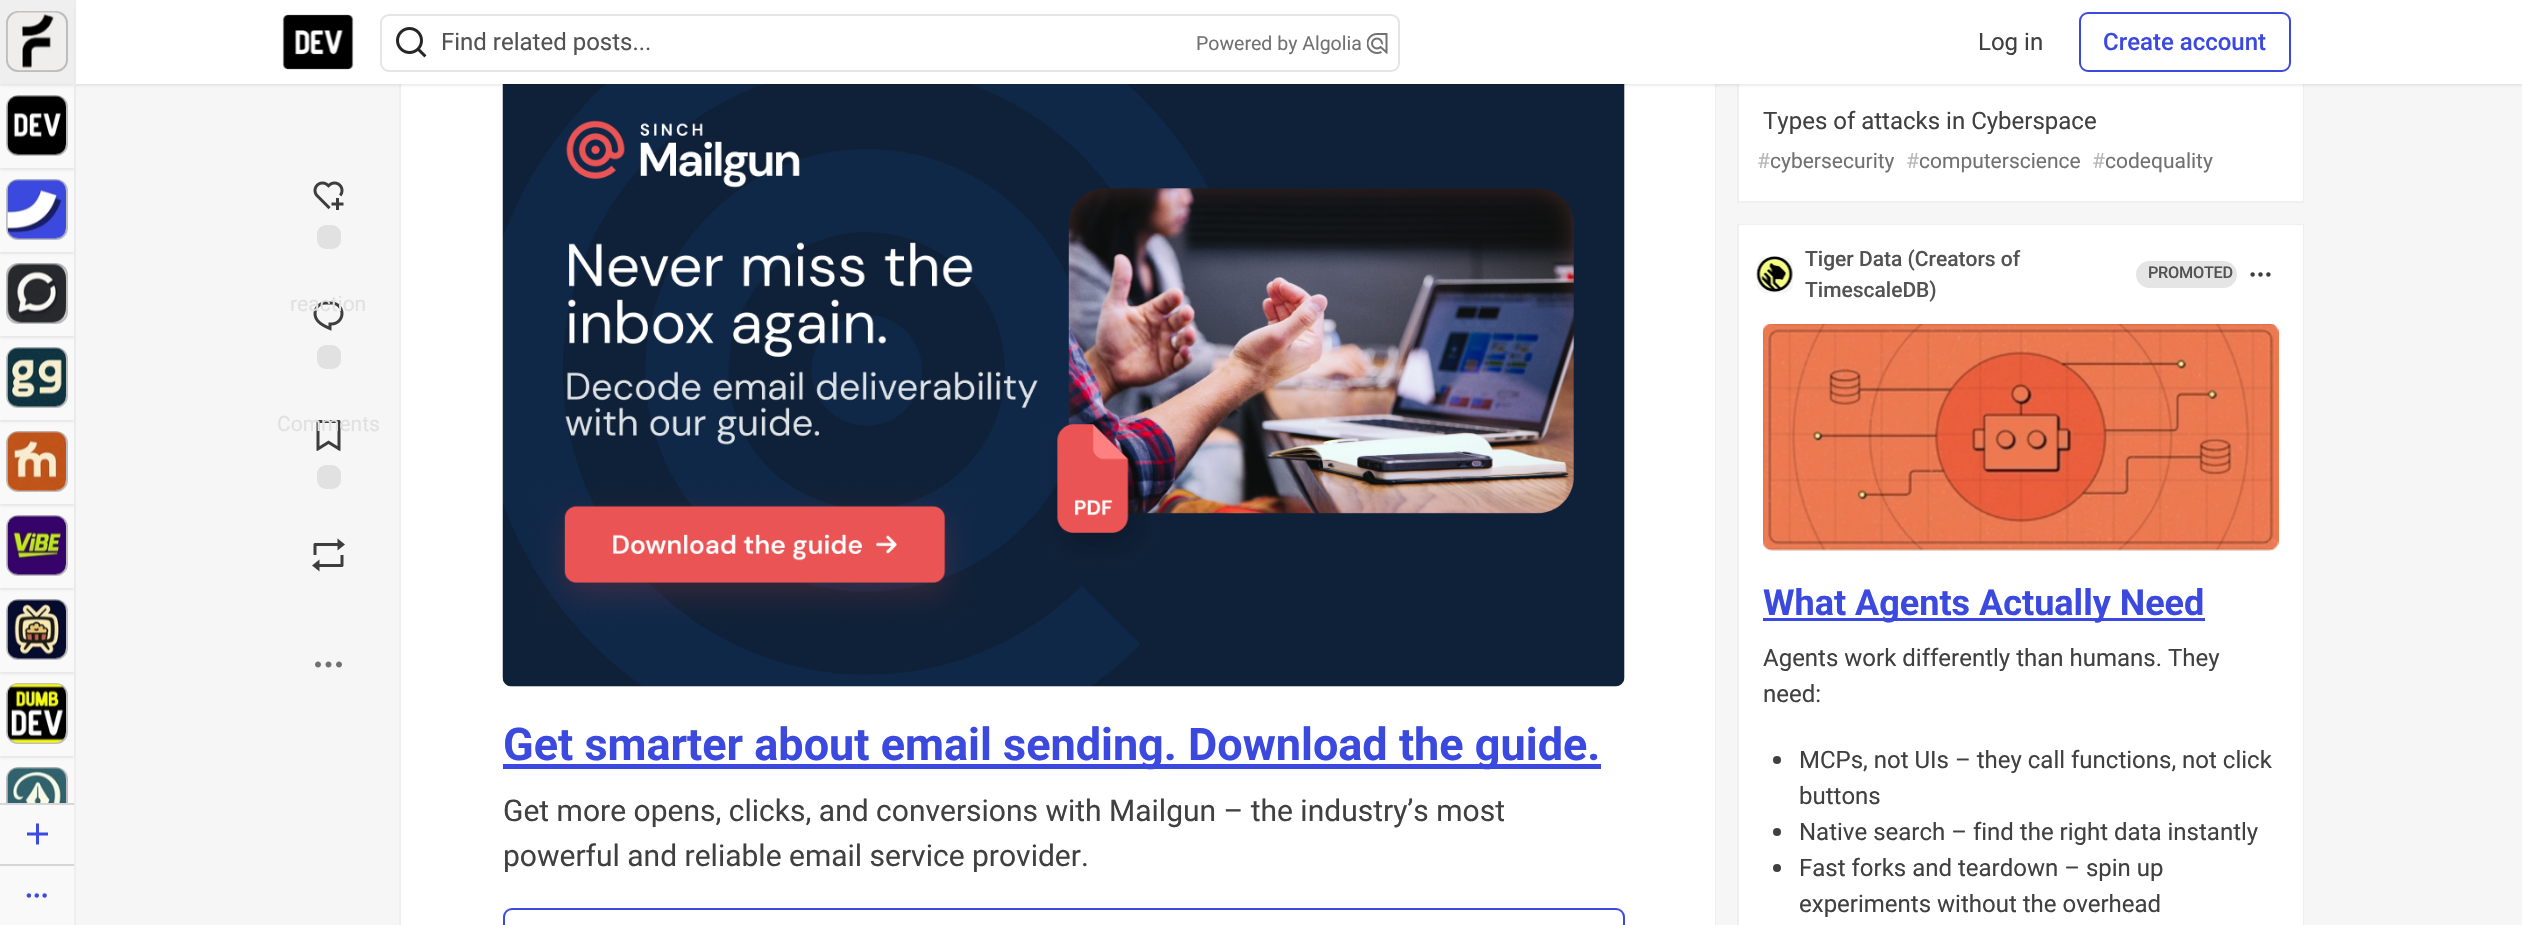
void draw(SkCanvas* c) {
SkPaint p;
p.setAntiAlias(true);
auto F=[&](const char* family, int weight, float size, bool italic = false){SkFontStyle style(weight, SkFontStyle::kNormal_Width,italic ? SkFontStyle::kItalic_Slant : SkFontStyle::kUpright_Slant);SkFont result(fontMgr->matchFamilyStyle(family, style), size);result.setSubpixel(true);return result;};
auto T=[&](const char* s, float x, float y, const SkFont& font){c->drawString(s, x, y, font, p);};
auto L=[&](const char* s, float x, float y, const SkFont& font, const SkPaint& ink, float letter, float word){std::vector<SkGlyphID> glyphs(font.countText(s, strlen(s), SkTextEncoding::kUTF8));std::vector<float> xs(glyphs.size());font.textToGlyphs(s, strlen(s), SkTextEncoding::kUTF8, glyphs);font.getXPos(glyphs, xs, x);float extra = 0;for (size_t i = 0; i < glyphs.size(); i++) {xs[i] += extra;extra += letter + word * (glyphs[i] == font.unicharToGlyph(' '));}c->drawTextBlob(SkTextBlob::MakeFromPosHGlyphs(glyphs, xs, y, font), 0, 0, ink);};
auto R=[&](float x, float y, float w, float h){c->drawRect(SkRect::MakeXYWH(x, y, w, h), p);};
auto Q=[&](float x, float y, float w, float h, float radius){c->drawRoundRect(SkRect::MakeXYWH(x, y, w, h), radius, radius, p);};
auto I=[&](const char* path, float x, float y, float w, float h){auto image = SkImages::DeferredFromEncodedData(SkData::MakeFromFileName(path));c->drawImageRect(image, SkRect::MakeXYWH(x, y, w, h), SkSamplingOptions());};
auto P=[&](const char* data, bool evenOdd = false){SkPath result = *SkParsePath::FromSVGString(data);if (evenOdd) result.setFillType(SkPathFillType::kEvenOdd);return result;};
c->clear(0xfff6f6f6);
p.setStroke(true);
p.setStrokeWidth(2);
p.setColor(0xffefefef);
c->drawRect(SkRect::MakeXYWH(1738,-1,565,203),p);
p.setStroke(false);
p.setColor(0xffffffff);
R(1739,84,564,117);
p.setStroke(true);
p.setColor(0xffefefef);
c->drawRect(SkRect::MakeXYWH(400,-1,1315,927),p);
p.setStroke(false);
p.setColor(0xffffffff);
R(401,84,1314,841);
p.setColor(0xfff6f6f6);
Q(503,56,1122,631,9);
I("24.png",502,84,1123,603);
p.setColor(0x12000000);
p.setMaskFilter(SkMaskFilter::MakeBlur(kNormal_SkBlurStyle, 1));
c->drawRect(SkRect::MakeXYWH(0,2,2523,84),p);
p.setMaskFilter(nullptr);
p.setColor(0xfff9f9f9);
R(0,84,74,841);
p.setColor(0xffefefef);
R(74,0,2,925);
p.setColor(0xffffffff);
R(76,0,2446,84);
p.setColor(0x12000000);
p.setMaskFilter(SkMaskFilter::MakeBlur(kNormal_SkBlurStyle, 1));
c->drawRect(SkRect::MakeXYWH(0,2,74,84),p);
p.setMaskFilter(nullptr);
p.setColor(0xffefefef);
R(0,0,74,84);
p.setStroke(true);
p.setColor(0xffbdbdbd);
c->drawRoundRect(SkRect::MakeXYWH(7,12,60,59),11,11,p);
I("1.png",7,11,53,60);
c->save();
c->clipPath(P("M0 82h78v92h-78zm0 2h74v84h-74z",true),true);
p.setStroke(false);
p.setColor(0x12000000);
p.setMaskFilter(SkMaskFilter::MakeBlur(kNormal_SkBlurStyle, 1));
c->drawRect(SkRect::MakeXYWH(0,86,74,84),p);
p.setMaskFilter(nullptr);
c->restore();
p.setStroke(true);
p.setColor(0xffbdbdbd);
c->drawRoundRect(SkRect::MakeXYWH(7,96,60,59),11,11,p);
I("2.png",7,95,59,60);
c->save();
c->clipPath(P("M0 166h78v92h-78zm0 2h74v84h-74z",true),true);
p.setStroke(false);
p.setColor(0x12000000);
p.setMaskFilter(SkMaskFilter::MakeBlur(kNormal_SkBlurStyle, 1));
c->drawRect(SkRect::MakeXYWH(0,170,74,84),p);
p.setMaskFilter(nullptr);
c->restore();
p.setStroke(true);
p.setColor(0xffbdbdbd);
c->drawRoundRect(SkRect::MakeXYWH(7,180,60,59),11,11,p);
I("3.png",7,179,59,60);
c->save();
c->clipPath(P("M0 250h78v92h-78zm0 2h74v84h-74z",true),true);
p.setStroke(false);
p.setColor(0x12000000);
p.setMaskFilter(SkMaskFilter::MakeBlur(kNormal_SkBlurStyle, 1));
c->drawRect(SkRect::MakeXYWH(0,254,74,84),p);
p.setMaskFilter(nullptr);
c->restore();
p.setStroke(true);
p.setColor(0xffbdbdbd);
c->drawRoundRect(SkRect::MakeXYWH(7,264,60,59),11,11,p);
I("4.png",7,263,59,60);
c->save();
c->clipPath(P("M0 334h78v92h-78zm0 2h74v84h-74z",true),true);
p.setStroke(false);
p.setColor(0x12000000);
p.setMaskFilter(SkMaskFilter::MakeBlur(kNormal_SkBlurStyle, 1));
c->drawRect(SkRect::MakeXYWH(0,338,74,84),p);
p.setMaskFilter(nullptr);
c->restore();
p.setStroke(true);
p.setColor(0xffbdbdbd);
c->drawRoundRect(SkRect::MakeXYWH(7,348,60,59),11,11,p);
I("5.png",7,347,59,60);
c->save();
c->clipPath(P("M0 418h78v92h-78zm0 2h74v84h-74z",true),true);
p.setStroke(false);
p.setColor(0x12000000);
p.setMaskFilter(SkMaskFilter::MakeBlur(kNormal_SkBlurStyle, 1));
c->drawRect(SkRect::MakeXYWH(0,422,74,84),p);
p.setMaskFilter(nullptr);
c->restore();
p.setStroke(true);
p.setColor(0xffbdbdbd);
c->drawRoundRect(SkRect::MakeXYWH(7,432,60,59),11,11,p);
I("6.png",7,431,59,60);
c->save();
c->clipPath(P("M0 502h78v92h-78zm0 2h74v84h-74z",true),true);
p.setStroke(false);
p.setColor(0x12000000);
p.setMaskFilter(SkMaskFilter::MakeBlur(kNormal_SkBlurStyle, 1));
c->drawRect(SkRect::MakeXYWH(0,506,74,84),p);
p.setMaskFilter(nullptr);
c->restore();
p.setStroke(true);
p.setColor(0xffbdbdbd);
c->drawRoundRect(SkRect::MakeXYWH(7,516,60,59),11,11,p);
I("7.png",7,515,59,60);
c->save();
c->clipPath(P("M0 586h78v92h-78zm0 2h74v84h-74z",true),true);
p.setStroke(false);
p.setColor(0x12000000);
p.setMaskFilter(SkMaskFilter::MakeBlur(kNormal_SkBlurStyle, 1));
c->drawRect(SkRect::MakeXYWH(0,590,74,84),p);
p.setMaskFilter(nullptr);
c->restore();
p.setStroke(true);
p.setColor(0xffbdbdbd);
c->drawRoundRect(SkRect::MakeXYWH(7,600,60,59),11,11,p);
I("8.png",7,599,59,60);
c->save();
c->clipPath(P("M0 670h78v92h-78zm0 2h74v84h-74z",true),true);
p.setStroke(false);
p.setColor(0x12000000);
p.setMaskFilter(SkMaskFilter::MakeBlur(kNormal_SkBlurStyle, 1));
c->drawRect(SkRect::MakeXYWH(0,674,74,84),p);
p.setMaskFilter(nullptr);
c->restore();
p.setStroke(true);
p.setColor(0xffbdbdbd);
c->drawRoundRect(SkRect::MakeXYWH(7,684,60,59),11,11,p);
I("9.png",7,683,59,60);
c->save();
c->clipRect(SkRect::MakeXYWH(0,0,74,803));
c->drawRoundRect(SkRect::MakeXYWH(7,768,60,59),11,11,p);
c->restore();
I("10.png",7,767,59,36);
p.setStroke(false);
p.setColor(0xffd6d6d7);
R(0,803,74,2);
I("11.png",27,823,21,22);
R(0,864,74,2);
I("12.png",26,893,21,5);
I("13.png",282,14,72,56);
p.setStroke(true);
p.setColor(0xffe5e5e5);
c->drawRoundRect(SkRect::MakeXYWH(381,15,1018,56),8,8,p);
I("14.png",396,27,31,31);
auto f1 = F("Roboto",400,24);
p.setStroke(false);
p.setColor(0xff525252);
T("Find related posts...",441,50,f1);
auto f2 = F("Roboto",400,19.5);
p.setColor(0xff717171);
T("Powered by Algolia",1196,50,f2);
I("15.png",1367,33,21,21);
p.setColor(0xff404040);
T("Log in",1978,50,f1);
p.setStroke(true);
p.setColor(0xff3b49df);
c->drawRoundRect(SkRect::MakeXYWH(2080,13,210,58),8,8,p);
auto f3 = F("Roboto",500,24);
p.setStroke(false);
T("Create account",2103,50,f3);
I("16.png",313,181,31,29);
p.setColor(0xffe1e1e1);
Q(317,225,24,24,9);
I("17.png",313,301,31,30);
auto f4 = F("Roboto",400,21);
T("reaction",290,311,f4);
Q(317,345,24,24,9);
I("18.png",316,420,25,31);
T("Comments",277,431,f4);
Q(317,465,24,24,9);
I("19.png",312,538,33,34);
I("20.png",315,661,27,7);
p.setColor(0xff404040);
T("Types of attacks in Cyberspace",1763,129,f1);
p.setColor(0xffb8b8b8);
T("#",1757,168,f4);
p.setColor(0xff717171);
T("cybersecurity",1770,168,f4);
p.setColor(0xffb8b8b8);
T("#",1906,168,f4);
p.setColor(0xff717171);
T("computerscience",1919,168,f4);
p.setColor(0xffb8b8b8);
T("#",2092,168,f4);
p.setColor(0xff717171);
T("codequality",2105,168,f4);
p.setStroke(true);
p.setColor(0xffefefef);
c->drawRect(SkRect::MakeXYWH(1738,225,565,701),p);
p.setStroke(false);
p.setColor(0xffffffff);
R(1739,225,564,700);
p.setColor(0xfff6f6f6);
Q(1757,257,36,36,9);
I("21.png",1756,256,37,36);
auto f5 = F("Roboto",500,21);
p.setColor(0xff525252);
T("Tiger Data (Creators of",1805,266,f5);
T("TimescaleDB)",1805,297,f5);
p.setColor(0xffe5e5e5);
Q(2136,261,101,27,13.5);
auto f6 = F("Roboto",500,16.25);
p.setColor(0xff525252);
L("PROMOTED",2148,278,f6,p,-.25,0);
I("22.png",2250,272,21,5);
p.setColor(0xfff6f6f6);
Q(1763,324,516,227,9);
I("23.png",1763,324,516,227);
p.setColor(0xff3b49df);
R(1763,618,442,3);
auto f7 = F("Roboto",700,36);
T("What Agents Actually Need",1763,615,f7);
p.setColor(0xff404040);
T("Agents work differently than humans. They",1763,666,f1);
T("need:",1763,702,f1);
c->drawCircle(1777,760,4,p);
T("MCPs, not UIs – they call functions, not click",1799,768,f1);
T("buttons",1799,804,f1);
c->drawCircle(1777,832,4,p);
T("Native search – find the right data instantly",1799,840,f1);
c->drawCircle(1777,868,4,p);
T("Fast forks and teardown – spin up",1799,876,f1);
T("experiments without the overhead",1799,912,f1);
p.setColor(0xff3b49df);
R(503,764,1098,5);
auto f8 = F("Roboto",700,45);
T("Get smarter about email sending. Download the guide.",503,760,f8);
auto f9 = F("Roboto",400,30);
p.setColor(0xff404040);
T("Get more opens, clicks, and conversions with Mailgun – the industry’s most",503,821,f9);
T("powerful and reliable email service provider.",503,866,f9);
p.setStroke(true);
p.setColor(0xff3b49df);
c->drawRoundRect(SkRect::MakeXYWH(504,909,1120,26),8,8,p);
}
